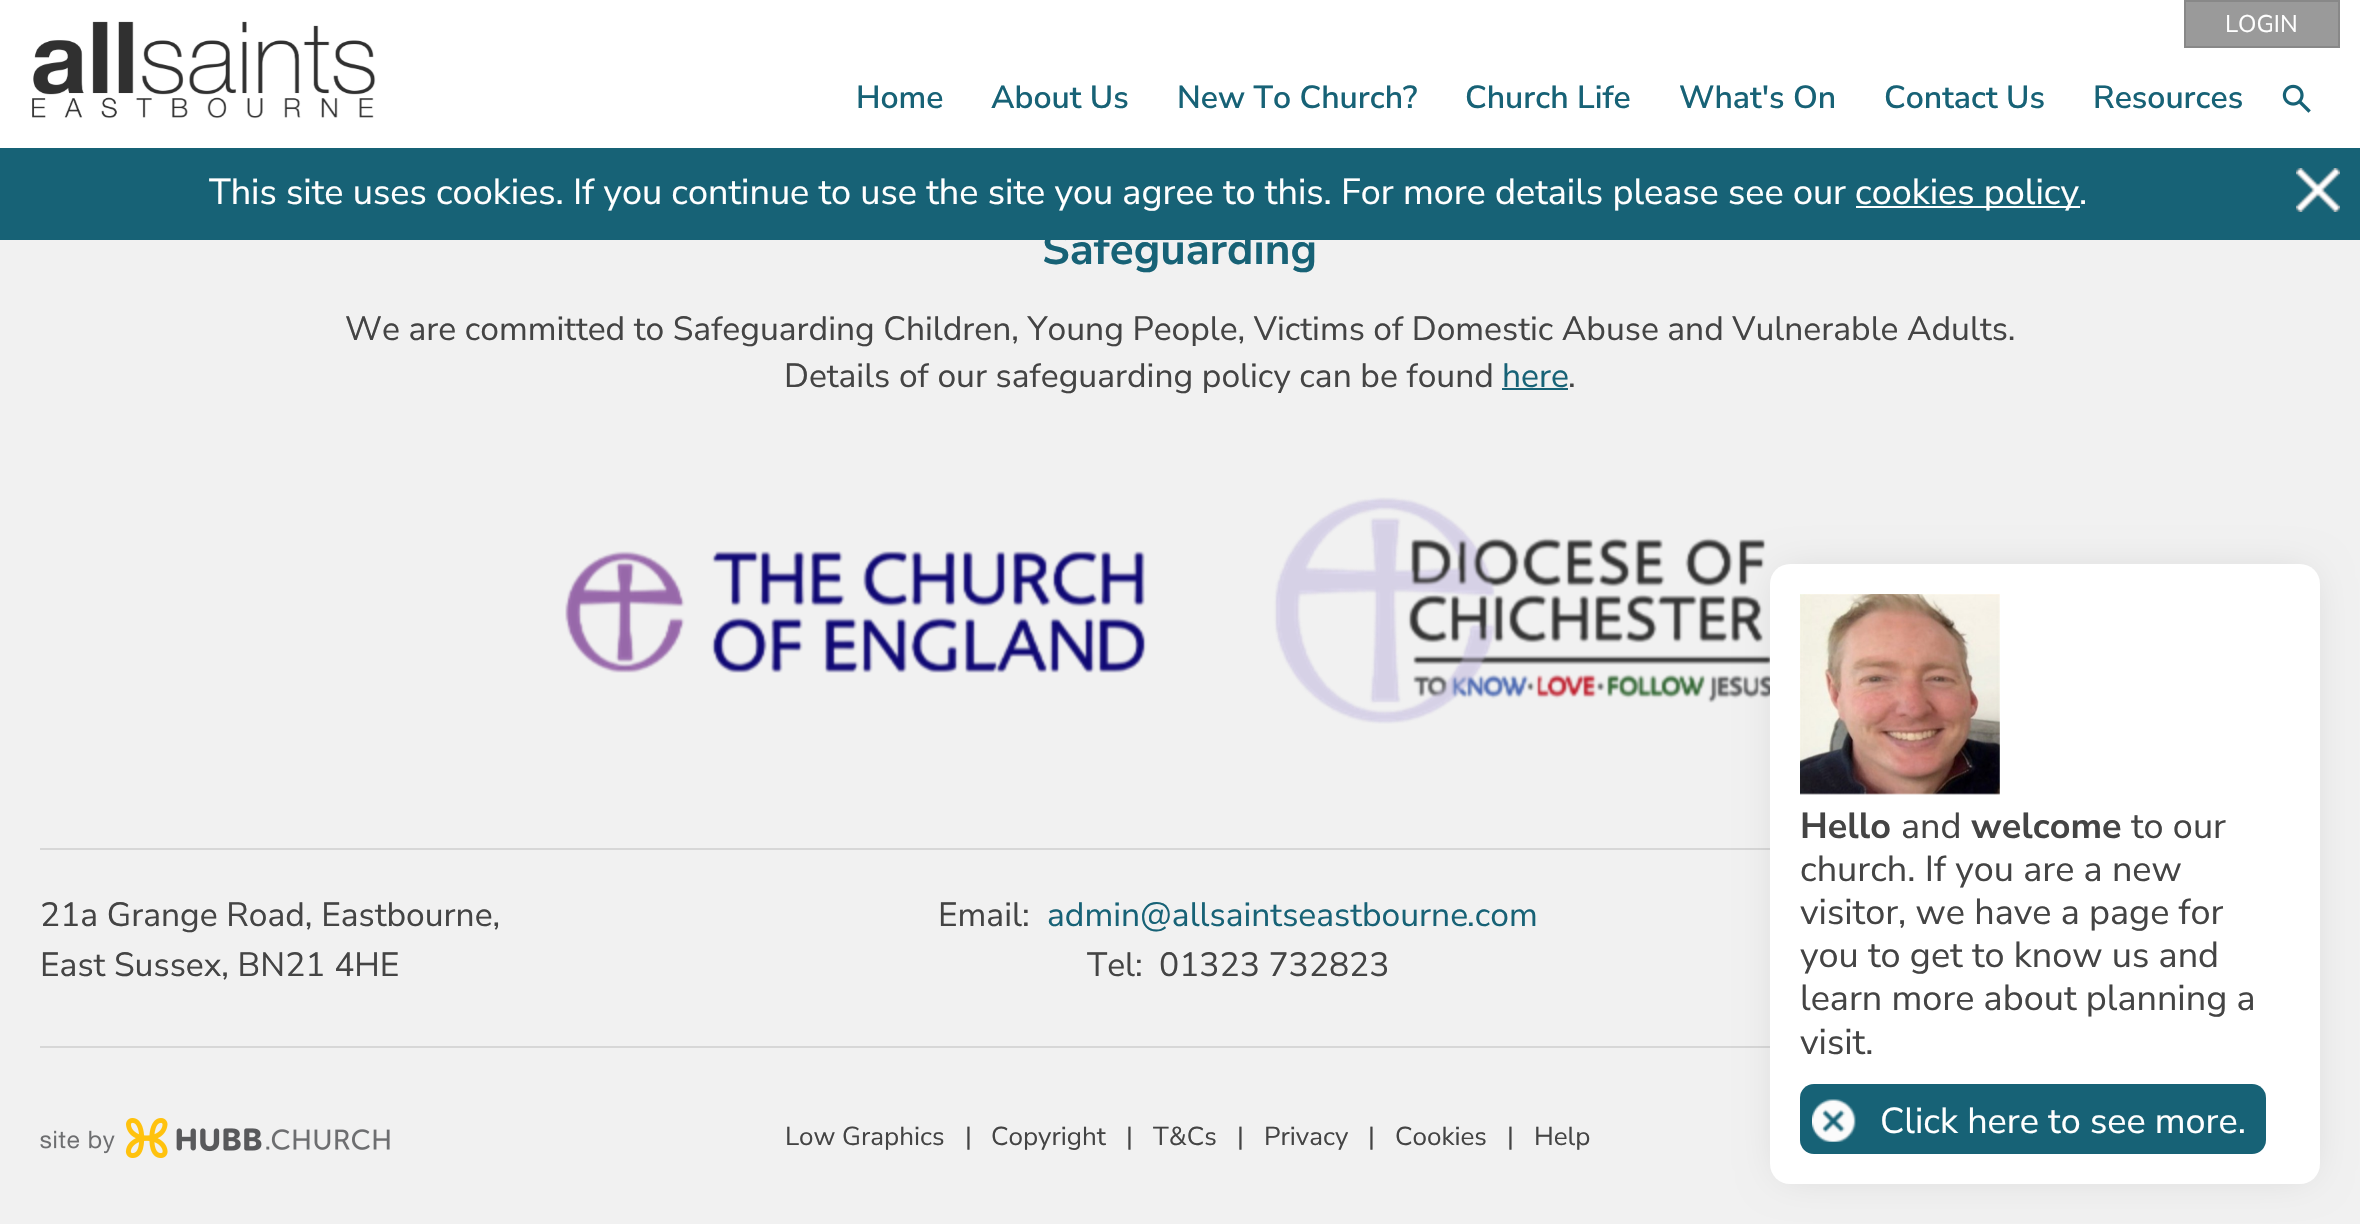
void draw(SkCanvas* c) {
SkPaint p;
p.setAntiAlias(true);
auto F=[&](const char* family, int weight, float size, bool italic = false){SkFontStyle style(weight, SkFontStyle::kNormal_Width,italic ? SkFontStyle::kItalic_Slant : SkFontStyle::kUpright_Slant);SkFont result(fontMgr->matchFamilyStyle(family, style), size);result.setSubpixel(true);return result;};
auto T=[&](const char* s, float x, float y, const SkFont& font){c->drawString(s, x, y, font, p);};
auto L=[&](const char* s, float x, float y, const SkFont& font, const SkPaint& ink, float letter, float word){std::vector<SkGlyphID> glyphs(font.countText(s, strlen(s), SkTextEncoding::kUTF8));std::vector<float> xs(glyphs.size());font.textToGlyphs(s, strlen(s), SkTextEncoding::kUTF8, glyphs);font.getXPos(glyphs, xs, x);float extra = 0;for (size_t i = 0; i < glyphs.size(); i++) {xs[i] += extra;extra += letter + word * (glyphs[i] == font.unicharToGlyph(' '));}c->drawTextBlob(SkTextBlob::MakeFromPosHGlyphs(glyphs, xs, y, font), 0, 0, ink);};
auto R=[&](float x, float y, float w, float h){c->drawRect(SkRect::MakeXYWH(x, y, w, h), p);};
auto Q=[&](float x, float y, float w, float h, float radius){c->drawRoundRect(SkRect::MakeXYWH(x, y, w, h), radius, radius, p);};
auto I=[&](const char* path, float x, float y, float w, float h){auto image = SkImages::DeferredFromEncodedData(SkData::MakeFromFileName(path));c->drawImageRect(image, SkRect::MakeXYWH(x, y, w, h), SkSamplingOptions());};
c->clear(0xfff1f1f1);
p.setColor(0xffffffff);
R(0,0,2360,148);
I("1.png",32,21,344,98);
auto f1 = F("Nunito Sans",600,32);
p.setColor(0xff176276);
T("Home",856,108,f1);
T("About Us",991,108,f1);
T("New To Church?",1177,108,f1);
T("Church Life",1465,108,f1);
T("What's On",1679,108,f1);
T("Contact Us",1884,108,f1);
T("Resources",2093,108,f1);
I("2.png",2282,84,29,29);
p.setColor(0xff9a9a9a);
c->drawRect(SkRect::MakeXYWH(2185,1,154,46),p);
p.setStroke(true);
p.setStrokeWidth(2);
p.setColor(0xff888888);
c->drawRect(SkRect::MakeXYWH(2185,1,154,46),p);
auto f2 = F("Nunito Sans",400,24);
p.setStroke(false);
p.setColor(0xffffffff);
T("LOGIN",2225,32,f2);
p.setColor(0xff176276);
R(0,148,2360,92);
auto f3 = F("Nunito Sans",400,36);
p.setColor(0xffffffff);
T("This site uses cookies. If you continue to use the site you agree to this. For more details please see our",209,204,f3);
R(1856,206,224,2);
T("cookies policy.",1855,204,f3);
I("3.png",2296,168,44,44);
auto f4 = F("Nunito Sans",700,44);
p.setColor(0xff176276);
T("Safeguarding",1042,264,f4);
auto f5 = F("Nunito Sans",400,33.6);
p.setColor(0xff444444);
L("We are committed to Safeguarding Children, Young People, Victims of Domestic Abuse and Vulnerable Adults.",345,340,f5,p,0,-.1);
T("Details of our safeguarding policy can be found",784,387,f5);
p.setColor(0xff176276);
T("here",1502,387,f5);
R(1502,388,66,2);
p.setColor(0xff444444);
T(".",1568,387,f5);
p.setColor(0xffd7d7d7);
R(40,848,1730,2);
I("4.png",565,497,1205,227);
p.setColor(0xff444444);
T("21a Grange Road, Eastbourne,",40,926,f5);
T("East Sussex, BN21 4HE",40,976,f5);
T("Email:",938,926,f5);
p.setColor(0xff176276);
T("admin@allsaintseastbourne",1047,926,f5);
T(".com",1467,926,f5);
p.setColor(0xff444444);
T("Tel:",1087,976,f5);
T("01323 732823",1159,976,f5);
p.setColor(0xffd7d7d7);
R(40,1046,1730,2);
I("5.png",40,1118,350,40);
auto f6 = F("Nunito Sans",400,26);
p.setColor(0xff444444);
T("Low Graphics",785,1145,f6);
T("|",965,1145,f6);
T("Copyright",991,1145,f6);
T("|",1126,1145,f6);
T("T&Cs",1153,1145,f6);
T("|",1237,1145,f6);
T("Privacy",1264,1145,f6);
T("|",1368,1145,f6);
T("Cookies",1395,1145,f6);
T("|",1507,1145,f6);
T("Help",1534,1145,f6);
p.setColor(0x1f000000);
p.setMaskFilter(SkMaskFilter::MakeBlur(kNormal_SkBlurStyle, 20));
c->drawRoundRect(SkRect::MakeXYWH(1780,574,530,600),10,10,p);
p.setMaskFilter(nullptr);
p.setColor(0xffffffff);
Q(1770,564,550,620,20);
I("6.png",1800,594,200,201);
auto f7 = F("Nunito Sans",700,36);
p.setColor(0xff444444);
T("Hello",1800,838,f7);
T("and",1901,838,f3);
T("welcome",1971,838,f7);
T("to our",2131,838,f3);
T("church. If you are a new",1800,881,f3);
T("visitor, we have a page for",1800,924,f3);
T("you to get to know us and",1800,967,f3);
T("learn more about planning a",1800,1010,f3);
T("visit.",1800,1054,f3);
p.setColor(0xff176276);
Q(1800,1084,466,70,14);
p.setColor(0xffffffff);
T("Click here to see more.",1880,1133,f3);
I("7.png",1812,1099,44,43);
}
